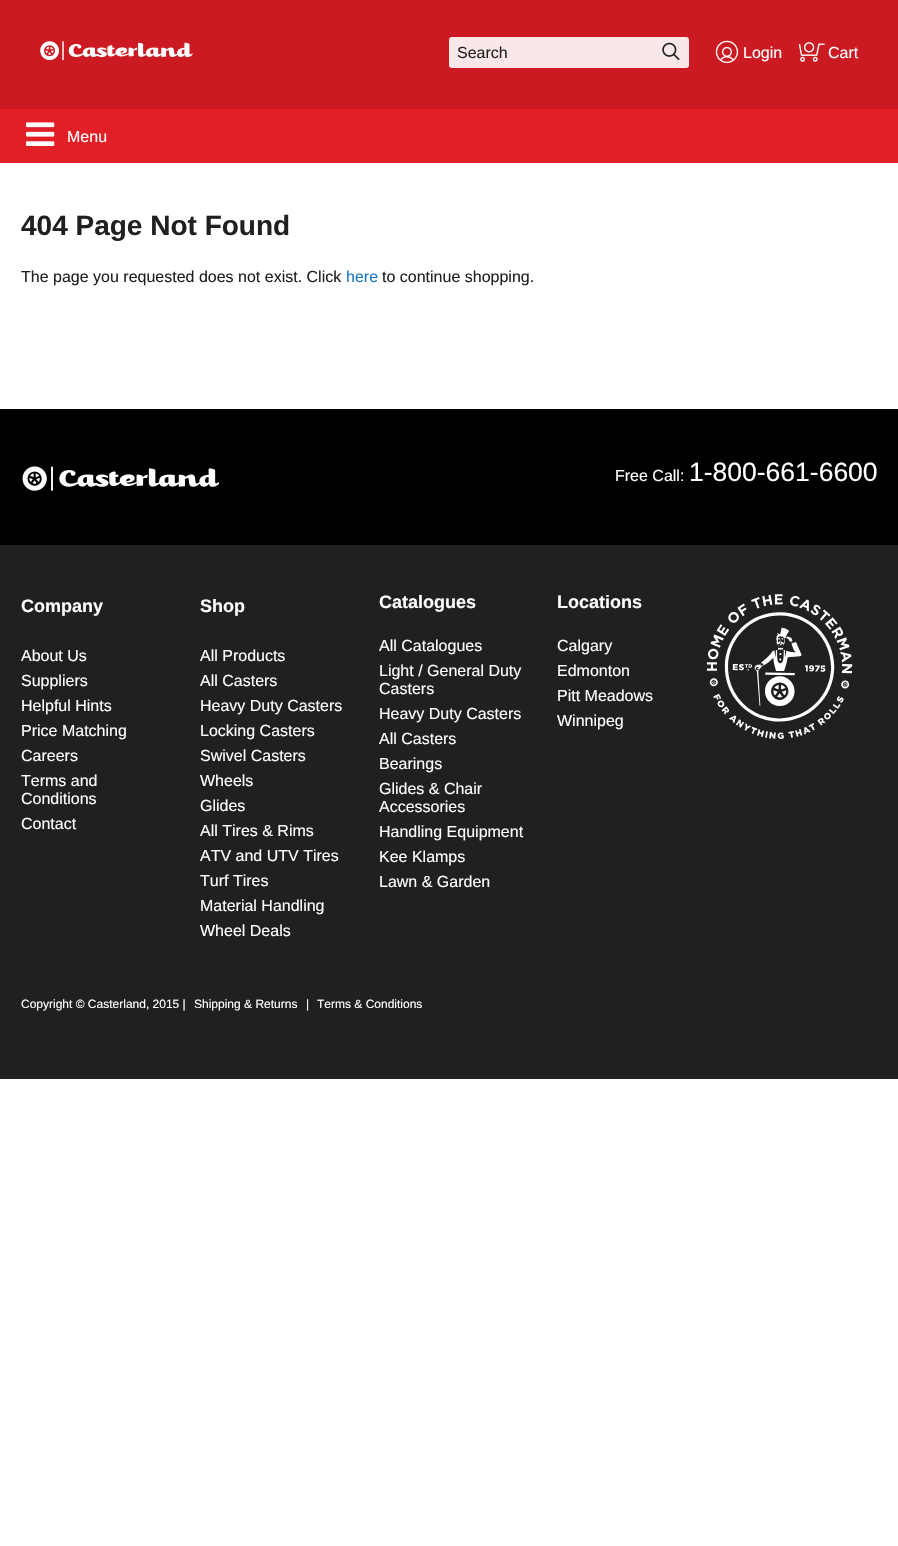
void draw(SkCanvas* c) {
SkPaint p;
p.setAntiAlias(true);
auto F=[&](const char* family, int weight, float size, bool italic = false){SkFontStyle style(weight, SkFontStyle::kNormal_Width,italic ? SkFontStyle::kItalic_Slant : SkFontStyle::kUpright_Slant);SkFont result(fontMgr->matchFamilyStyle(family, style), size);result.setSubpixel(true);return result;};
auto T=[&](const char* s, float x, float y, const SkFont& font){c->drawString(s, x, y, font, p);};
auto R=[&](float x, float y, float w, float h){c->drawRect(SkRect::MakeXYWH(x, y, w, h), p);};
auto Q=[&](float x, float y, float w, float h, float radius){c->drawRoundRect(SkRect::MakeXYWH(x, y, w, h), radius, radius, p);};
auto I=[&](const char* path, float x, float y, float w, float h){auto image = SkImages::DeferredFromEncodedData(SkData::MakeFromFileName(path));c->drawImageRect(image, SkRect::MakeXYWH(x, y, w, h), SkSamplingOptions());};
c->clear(0xffffffff);
p.setColor(0xffcb1a21);
R(0,0,898,109);
I("1.png",40,41,153,20);
p.setColor(0xfffae8e9);
Q(449,37,240,31,3);
auto f1 = F("Liberation Sans",400,16);
p.setColor(0xff202020);
T("Search",457,58,f1);
I("2.png",662,42,18,19);
I("3.png",715,40,24,23);
p.setColor(0xffffffff);
T("Login",743,58,f1);
I("4.png",798,42,27,20);
T("Cart",828,58,f1);
p.setColor(0xffe21e26);
R(0,109,898,54);
I("5.png",26,122,29,24);
p.setColor(0xffffffff);
T("Menu",67,142,f1);
auto f2 = F("Liberation Sans",700,28);
p.setColor(0xff202020);
T("404 Page Not Found",21,235,f2);
T("The page you requested does not exist. Click",21,282,f1);
p.setColor(0xff1c77c4);
T("here",346,282,f1);
p.setColor(0xff202020);
T("to continue shopping.",382,282,f1);
p.setColor(0xff000000);
R(0,409,898,136);
I("6.png",22,466,198,25);
p.setColor(0xffffffff);
T("Free Call:",615,481,f1);
auto f3 = F("Liberation Sans",400,26.5);
T("1-800-661-6600",689,481,f3);
p.setColor(0xff202020);
R(0,545,898,534);
auto f4 = F("Liberation Sans",700,18);
p.setColor(0xffffffff);
T("Company",21,612,f4);
T("About Us",21,661,f1);
T("Suppliers",21,686,f1);
T("Helpful Hints",21,711,f1);
T("Price Matching",21,736,f1);
T("Careers",21,761,f1);
T("Terms and",21,786,f1);
T("Conditions",21,804,f1);
T("Contact",21,829,f1);
T("Shop",200,612,f4);
T("All Products",200,661,f1);
T("All Casters",200,686,f1);
T("Heavy Duty Casters",200,711,f1);
T("Locking Casters",200,736,f1);
T("Swivel Casters",200,761,f1);
T("Wheels",200,786,f1);
T("Glides",200,811,f1);
T("All Tires & Rims",200,836,f1);
T("ATV and UTV Tires",200,861,f1);
T("Turf Tires",200,886,f1);
T("Material Handling",200,911,f1);
T("Wheel Deals",200,936,f1);
T("Catalogues",379,608,f4);
T("All Catalogues",379,651,f1);
T("Light / General Duty",379,676,f1);
T("Casters",379,694,f1);
T("Heavy Duty Casters",379,719,f1);
T("All Casters",379,744,f1);
T("Bearings",379,769,f1);
T("Glides & Chair",379,794,f1);
T("Accessories",379,812,f1);
T("Handling Equipment",379,837,f1);
T("Kee Klamps",379,862,f1);
T("Lawn & Garden",379,887,f1);
T("Locations",557,608,f4);
T("Calgary",557,651,f1);
T("Edmonton",557,676,f1);
T("Pitt Meadows",557,701,f1);
T("Winnipeg",557,726,f1);
I("7.png",706,594,147,145);
auto f5 = F("Liberation Sans",400,12);
T("Copyright © Casterland, 2015 |",21,1008,f5);
T("Shipping & Returns",194,1008,f5);
T("|",306,1008,f5);
T("Terms & Conditions",317,1008,f5);
}
